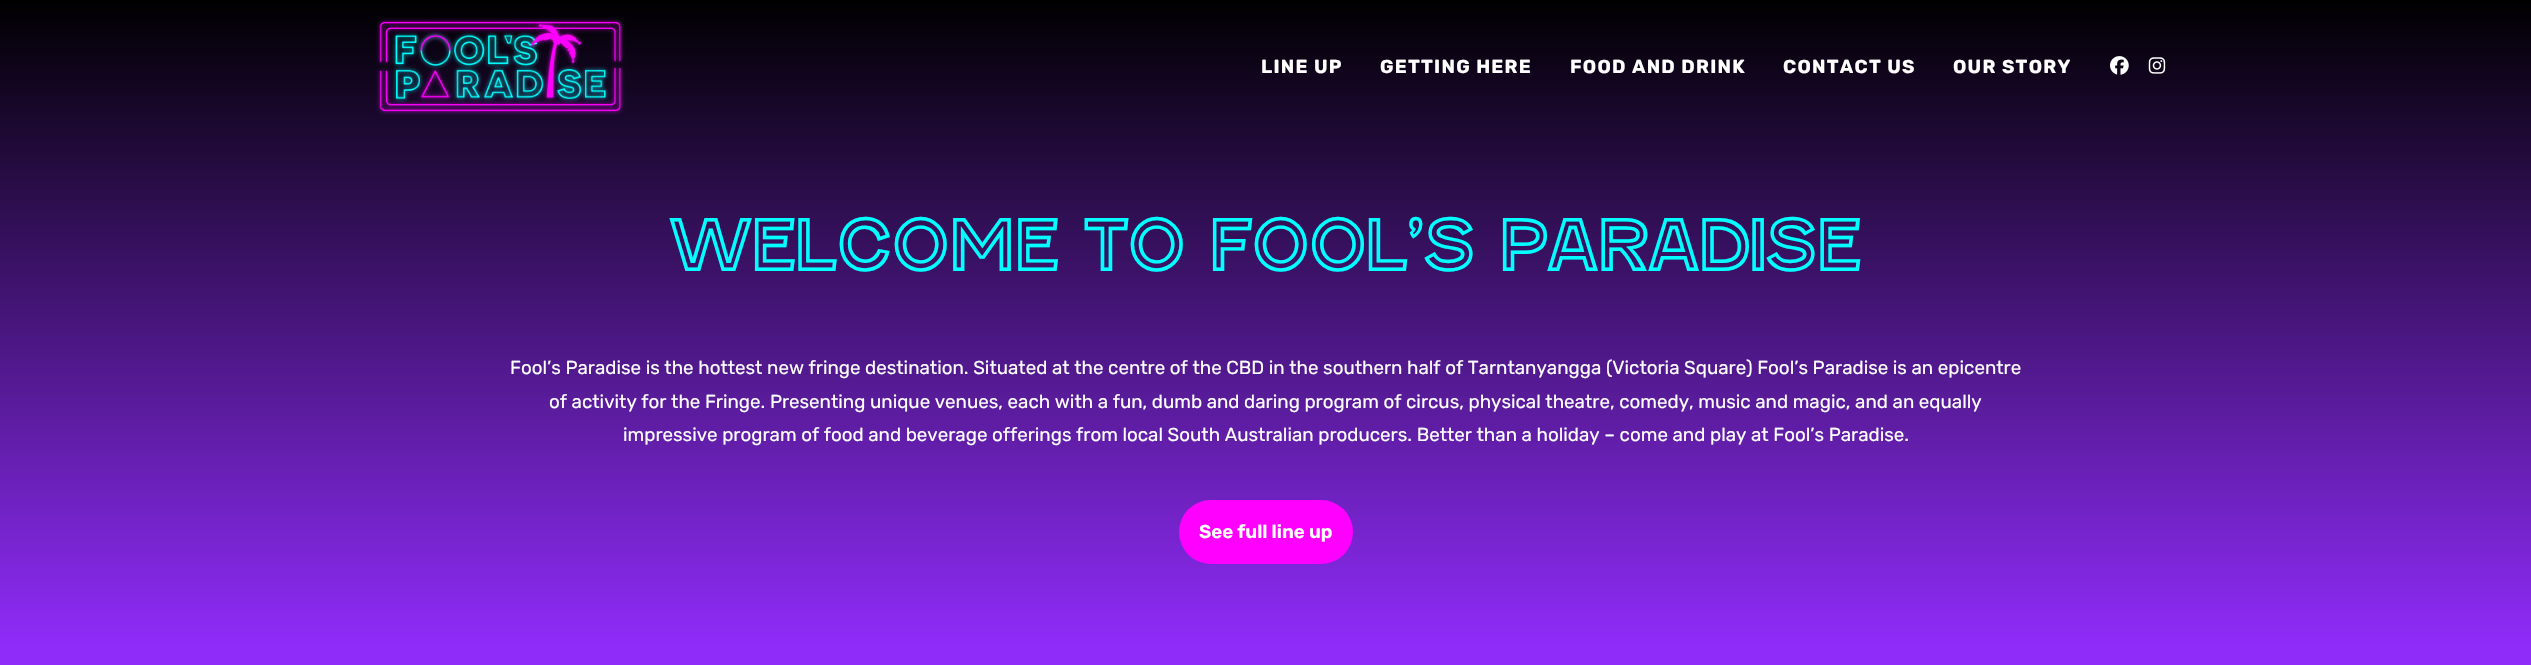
void draw(SkCanvas* c) {
SkPaint p;
p.setAntiAlias(true);
auto F=[&](const char* family, int weight, float size, bool italic = false){SkFontStyle style(weight, SkFontStyle::kNormal_Width,italic ? SkFontStyle::kItalic_Slant : SkFontStyle::kUpright_Slant);SkFont result(fontMgr->matchFamilyStyle(family, style), size);result.setSubpixel(true);return result;};
auto T=[&](const char* s, float x, float y, const SkFont& font){c->drawString(s, x, y, font, p);};
auto L=[&](const char* s, float x, float y, const SkFont& font, const SkPaint& ink, float letter, float word){std::vector<SkGlyphID> glyphs(font.countText(s, strlen(s), SkTextEncoding::kUTF8));std::vector<float> xs(glyphs.size());font.textToGlyphs(s, strlen(s), SkTextEncoding::kUTF8, glyphs);font.getXPos(glyphs, xs, x);float extra = 0;for (size_t i = 0; i < glyphs.size(); i++) {xs[i] += extra;extra += letter + word * (glyphs[i] == font.unicharToGlyph(' '));}c->drawTextBlob(SkTextBlob::MakeFromPosHGlyphs(glyphs, xs, y, font), 0, 0, ink);};
auto R=[&](float x, float y, float w, float h){c->drawRect(SkRect::MakeXYWH(x, y, w, h), p);};
auto Q=[&](float x, float y, float w, float h, float radius){c->drawRoundRect(SkRect::MakeXYWH(x, y, w, h), radius, radius, p);};
auto I=[&](const char* path, float x, float y, float w, float h){auto image = SkImages::DeferredFromEncodedData(SkData::MakeFromFileName(path));c->drawImageRect(image, SkRect::MakeXYWH(x, y, w, h), SkSamplingOptions());};
auto P=[&](const char* data, bool evenOdd = false){SkPath result = *SkParsePath::FromSVGString(data);if (evenOdd) result.setFillType(SkPathFillType::kEvenOdd);return result;};
c->clear(0xffffffff);
{
const SkColor colors[] = {0xff902cfa,0xff000000};
const float stops[] = {0,1};
const SkPoint ends[] = {{1266,649}, {1266,0}};
p.setShader(SkGradientShader::MakeLinear(ends, colors, stops, 2, SkTileMode::kClamp));
p.setAlpha(255);
}
R(0,0,2531,649);
I("1.png",376,18,249,97);
auto f1 = F("Rubik",700,18.75);
p.setShader(nullptr);
p.setColor(0xffffffff);
L("LINE UP",1261,73,f1,p,1.25,0);
L("GETTING HERE",1380,73,f1,p,1.25,0);
L("FOOD AND DRINK",1570,73,f1,p,1.25,0);
L("CONTACT US",1783,73,f1,p,1.25,0);
L("OUR STORY",1953,73,f1,p,1.25,0);
I("2.png",2110,56,19,19);
I("3.png",2148,57,18,17);
auto f2 = F("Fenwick",400,78.75);
p.setColor(0xff00ffff);
T("Welcome to Fool’s Paradise",670,271,f2);
auto f3 = F("Rubik",400,18.75);
p.setColor(0xffffffff);
T("Fool’s Paradise is the hottest new fringe destination. Situated at the centre of the CBD in the southern half of Tarntanyangga (Victoria Square) Fool’s Paradise is an epicentre",510,374,f3);
T("of activity for the Fringe. Presenting unique venues, each with a fun, dumb and daring program of circus, physical theatre, comedy, music and magic, and an equally",549,408,f3);
T("impressive program of food and beverage offerings from local South Australian producers. Better than a holiday – come and play at Fool’s Paradise.",623,441,f3);
p.setColor(0xffff00ff);
Q(1179,500,174,64,32);
auto f4 = F("Rubik",600,18.75);
p.setColor(0xffffffff);
T("See full line up",1199,538,f4);
c->save();
c->clipRect(SkRect::MakeXYWH(0,649,2531,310));
p.setColor(0xff902cfa);
c->drawPath(P("M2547 637v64c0 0-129 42-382 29c-249-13-392-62-539-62c-147 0-192 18-276 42c-119 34-264 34-293 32c-30-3-107-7-168 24c-60 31-150 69-331 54c-181-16-431-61-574 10v-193z"),p);
c->restore();
}
